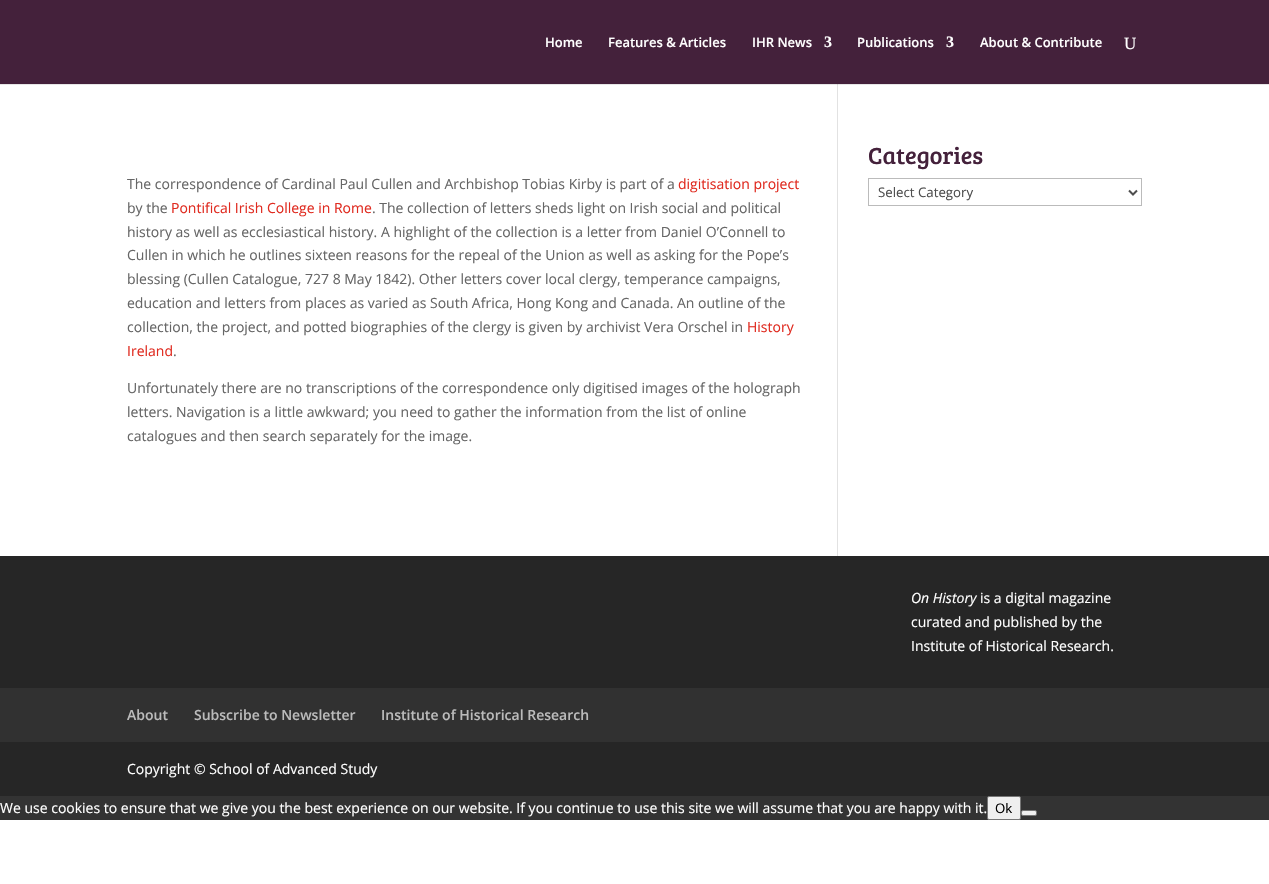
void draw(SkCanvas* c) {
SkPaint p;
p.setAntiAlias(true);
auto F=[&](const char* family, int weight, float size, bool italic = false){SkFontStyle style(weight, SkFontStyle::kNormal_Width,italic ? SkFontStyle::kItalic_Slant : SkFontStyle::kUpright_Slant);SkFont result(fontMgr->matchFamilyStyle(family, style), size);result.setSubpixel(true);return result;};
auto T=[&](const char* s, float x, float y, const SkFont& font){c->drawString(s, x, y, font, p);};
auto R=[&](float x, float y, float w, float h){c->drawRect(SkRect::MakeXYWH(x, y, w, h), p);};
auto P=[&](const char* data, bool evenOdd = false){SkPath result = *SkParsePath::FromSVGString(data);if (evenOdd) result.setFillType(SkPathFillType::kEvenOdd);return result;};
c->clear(0xffffffff);
p.setColor(0xffe6e6e6);
R(0,84,1269,1);
p.setColor(0xff44213b);
R(0,0,1269,84);
auto f1 = F("Open Sans",600,13);
p.setColor(0xffffffff);
T("Home",545,47,f1);
T("Features & Articles",608,47,f1);
T("IHR News",752,47,f1);
auto f2 = F("Liberation Serif",700,16);
T("3",824,47,f2);
T("Publications",857,47,f1);
T("3",946,47,f2);
T("About & Contribute",980,47,f1);
auto f3 = F("Liberation Serif",400,17);
T("U",1124,49,f3);
p.setColor(0xffe2e2e2);
R(837,84,1,472);
p.setColor(0xffcbcbcb);
R(837,84,1,1);
auto f4 = F("Open Sans",400,14);
p.setColor(0xff666666);
T("The correspondence of Cardinal Paul Cullen and Archbishop Tobias Kirby is part of a",127,189,f4);
p.setColor(0xffe02b20);
T("digitisation project",678,189,f4);
p.setColor(0xff666666);
T("by the",127,213,f4);
p.setColor(0xffe02b20);
T("Pontifical Irish College in Rome",171,213,f4);
p.setColor(0xff666666);
T(". The collection of letters sheds light on Irish social and political",372,213,f4);
T("history as well as ecclesiastical history. A highlight of the collection is a letter from Daniel O’Connell to",127,237,f4);
T("Cullen in which he outlines sixteen reasons for the repeal of the Union as well as asking for the Pope’s",127,260,f4);
T("blessing (Cullen Catalogue, 727 8 May 1842). Other letters cover local clergy, temperance campaigns,",127,284,f4);
T("education and letters from places as varied as South Africa, Hong Kong and Canada. An outline of the",127,308,f4);
T("collection, the project, and potted biographies of the clergy is given by archivist Vera Orschel in",127,332,f4);
p.setColor(0xffe02b20);
T("History",747,332,f4);
T("Ireland",127,356,f4);
p.setColor(0xff666666);
T(".",173,356,f4);
T("Unfortunately there are no transcriptions of the correspondence only digitised images of the holograph",127,393,f4);
T("letters. Navigation is a little awkward; you need to gather the information from the list of online",127,417,f4);
T("catalogues and then search separately for the image.",127,441,f4);
auto f5 = F("Bree Serif",400,24);
p.setColor(0xff44213b);
T("Categories",868,164,f5);
p.setStroke(true);
p.setStrokeWidth(1);
p.setColor(0xffbbbbbb);
c->drawRect(SkRect::MakeXYWH(868.5,178.5,273,27),p);
p.setStrokeWidth(2);
p.setColor(0xff4e4e4e);
c->drawPath(P("M1129 190.5l4 4l4-4"),p);
auto f6 = F("Open Sans",400,13.25);
p.setStroke(false);
T("Select Category",878,197,f6);
p.setColor(0xff262626);
R(0,556,1269,240);
auto f7 = F("Open Sans",400,14,true);
p.setColor(0xffffffff);
T("On History",911,603,f7);
T("is a digital magazine",980,603,f4);
T("curated and published by the",911,627,f4);
T("Institute of Historical Research.",911,651,f4);
p.setColor(0xff313131);
R(0,688,1269,54);
auto f8 = F("Open Sans",600,14);
p.setColor(0xffbbbbbb);
T("About",127,720,f8);
T("Subscribe to Newsletter",194,720,f8);
T("Institute of Historical Research",381,720,f8);
p.setColor(0xffffffff);
T("Copyright © School of Advanced Study",127,774,f4);
p.setColor(0xff333333);
R(0,796,1269,24);
p.setColor(0xffffffff);
T("We use cookies to ensure that we give you the best experience on our website. If you continue to use this site we will assume that you are happy with it.",0,813,f4);
p.setColor(0xffefefef);
c->drawRoundRect(SkRect::MakeXYWH(987.5,796.5,33,23),1.5,1.5,p);
p.setStroke(true);
p.setStrokeWidth(1);
p.setColor(0xff767676);
c->drawRoundRect(SkRect::MakeXYWH(987.5,796.5,33,23),1.5,1.5,p);
p.setStroke(false);
p.setColor(0xff000000);
T("Ok",995,813,f6);
p.setColor(0xffefefef);
c->drawRoundRect(SkRect::MakeXYWH(1021.5,810.5,15,5),1.5,1.5,p);
p.setStroke(true);
p.setColor(0xff767676);
c->drawRoundRect(SkRect::MakeXYWH(1021.5,810.5,15,5),1.5,1.5,p);
}
